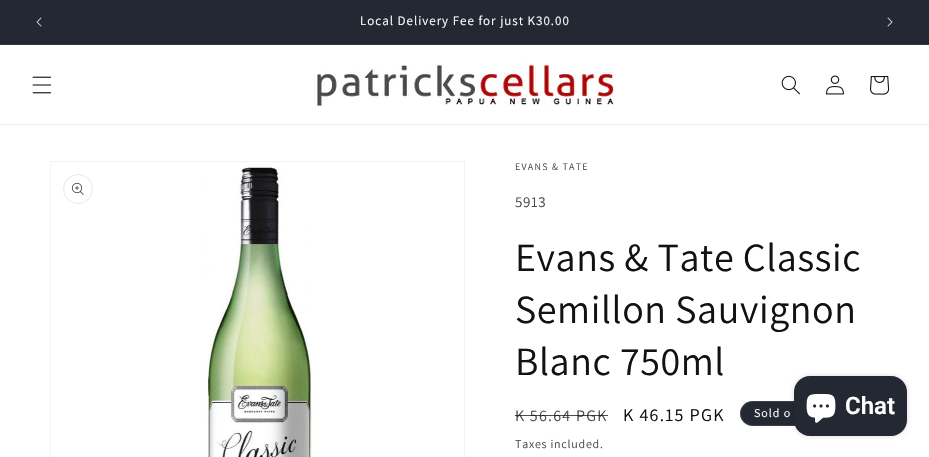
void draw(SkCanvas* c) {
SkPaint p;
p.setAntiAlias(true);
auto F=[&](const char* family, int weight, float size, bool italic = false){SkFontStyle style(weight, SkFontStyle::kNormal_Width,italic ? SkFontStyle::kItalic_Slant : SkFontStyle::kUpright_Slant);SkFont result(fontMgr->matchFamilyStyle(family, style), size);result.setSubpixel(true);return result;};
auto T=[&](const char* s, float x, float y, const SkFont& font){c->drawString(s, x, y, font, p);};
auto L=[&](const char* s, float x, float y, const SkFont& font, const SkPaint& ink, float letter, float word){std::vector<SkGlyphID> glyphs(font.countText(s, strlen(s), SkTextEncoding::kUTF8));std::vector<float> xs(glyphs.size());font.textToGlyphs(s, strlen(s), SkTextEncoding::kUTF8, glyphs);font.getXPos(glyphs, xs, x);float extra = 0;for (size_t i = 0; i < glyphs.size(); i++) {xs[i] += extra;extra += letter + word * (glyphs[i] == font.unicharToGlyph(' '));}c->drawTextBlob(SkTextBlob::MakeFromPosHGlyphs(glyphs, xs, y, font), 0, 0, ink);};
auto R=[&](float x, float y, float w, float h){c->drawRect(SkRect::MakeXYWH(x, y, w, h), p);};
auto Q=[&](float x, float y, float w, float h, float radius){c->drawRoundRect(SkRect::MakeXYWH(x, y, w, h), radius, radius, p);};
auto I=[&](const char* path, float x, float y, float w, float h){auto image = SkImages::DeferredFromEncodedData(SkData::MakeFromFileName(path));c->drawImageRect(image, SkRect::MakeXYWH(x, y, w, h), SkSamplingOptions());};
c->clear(0xffffffff);
p.setColor(0xff242833);
R(0,0,929,44);
p.setColor(0xff363943);
R(0,44,929,1);
I("1.png",36,17,6,10);
auto f1 = F("Assistant",400,13);
p.setColor(0xffffffff);
L("Local Delivery Fee for just K30.00",360,25,f1,p,1,0);
I("2.png",887,17,6,10);
p.setColor(0xffececec);
R(0,124,929,1);
I("3.png",32,76,20,18);
I("4.png",317,63,298,44);
I("5.png",781,75,19,20);
I("6.png",826,75,18,20);
I("7.png",870,76,20,19);
p.setStroke(true);
p.setStrokeWidth(1);
p.setColor(0xfff3f3f3);
c->drawRect(SkRect::MakeXYWH(50.5,161.5,414,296),p);
p.setColor(0xffe7e7e7);
c->drawCircle(78,189,14.5,p);
I("8.png",72,183,12,12);
I("9.png",206,166,107,291);
auto f2 = F("Assistant",400,10);
p.setStroke(false);
p.setColor(0xff4d4d4d);
L("EVANS & TATE",515,170,f2,p,1.25,0);
auto f3 = F("Assistant",400,15);
L("5913",515,207,f3,p,.6,0);
auto f4 = F("Assistant",400,40);
p.setColor(0xff121212);
L("Evans & Tate Classic",515,271,f4,p,.6,0);
L("Semillon Sauvignon",515,323,f4,p,.6,0);
L("Blanc 750ml",515,375,f4,p,.6,0);
auto f5 = F("Assistant",400,16);
p.setColor(0xff4d4d4d);
L("K 56.64 PGK",515,421,f5,p,1.25,0);
p.setColor(0xbf121212);
R(515,415,93,1);
auto f6 = F("Assistant",400,18);
p.setColor(0xff121212);
L("K 46.15 PGK",623,421,f6,p,1.25,0);
p.setColor(0xff242833);
Q(740,401,78,25,12.5);
p.setStroke(true);
p.setColor(0x1affffff);
c->drawRoundRect(SkRect::MakeXYWH(740.5,401.5,77,24),12,12,p);
auto f7 = F("Assistant",400,12);
p.setStroke(false);
p.setColor(0xffffffff);
L("Sold o",754,417,f7,p,1,0);
p.setColor(0xff4d4d4d);
L("Taxes included.",515,448,f7,p,.75,0);
p.setColor(0x26000000);
p.setMaskFilter(SkMaskFilter::MakeBlur(kNormal_SkBlurStyle, 2.5));
c->drawRoundRect(SkRect::MakeXYWH(794,376,113,60),16,16,p);
p.setMaskFilter(nullptr);
p.setColor(0xff242833);
Q(794,376,113,60,16);
I("10.png",806,394,30,29);
auto f8 = F("Roboto",600,24);
p.setColor(0xffffffff);
T("Chat",845,414,f8);
}
